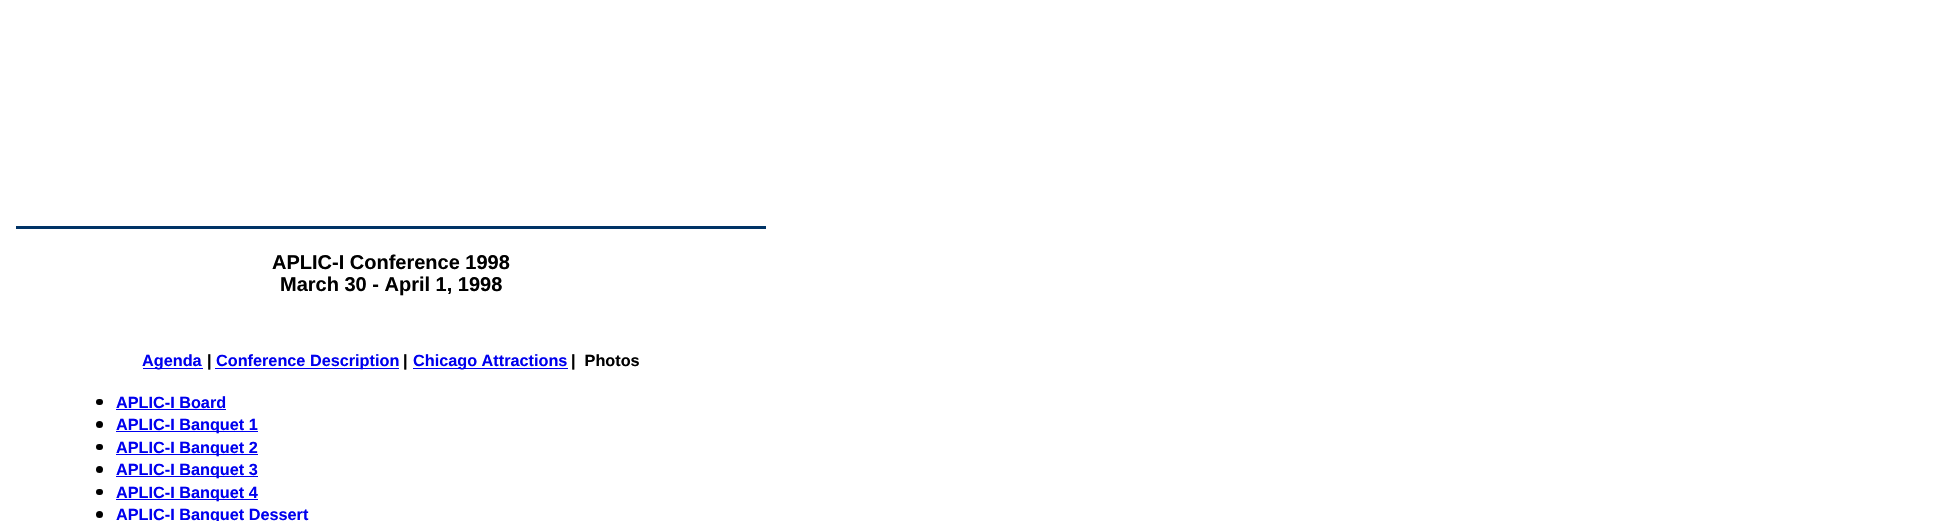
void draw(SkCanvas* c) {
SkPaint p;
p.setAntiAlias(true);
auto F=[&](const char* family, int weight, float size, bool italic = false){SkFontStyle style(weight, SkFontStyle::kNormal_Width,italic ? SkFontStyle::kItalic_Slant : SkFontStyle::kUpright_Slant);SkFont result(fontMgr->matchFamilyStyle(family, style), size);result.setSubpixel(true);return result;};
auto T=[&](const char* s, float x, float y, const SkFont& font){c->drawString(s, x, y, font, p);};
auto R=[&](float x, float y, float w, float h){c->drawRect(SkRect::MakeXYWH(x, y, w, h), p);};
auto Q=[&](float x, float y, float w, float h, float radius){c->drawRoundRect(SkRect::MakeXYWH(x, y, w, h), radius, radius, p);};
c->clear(0xffffffff);
p.setColor(0xff003366);
R(16,226,750,3);
auto f1 = F("Liberation Sans",700,20);
p.setColor(0xff000000);
T("APLIC-I Conference 1998",272,269,f1);
T("March 30 - April 1, 1998",280,291,f1);
p.setColor(0xff0000ee);
R(143,368,60,1);
auto f2 = F("Liberation Sans",700,16.25);
T("Agenda",142,366,f2);
p.setColor(0xff000000);
T("|",207,366,f2);
p.setColor(0xff0000ee);
R(215,368,184,1);
T("Conference Description",216,366,f2);
p.setColor(0xff000000);
T("|",403,366,f2);
p.setColor(0xff0000ee);
R(413,368,155,1);
T("Chicago Attractions",413,366,f2);
p.setColor(0xff000000);
T("|  Photos",571,366,f2);
Q(96,399,7,6,3);
p.setColor(0xff0000ee);
T("APLIC-I Board",116,408,f2);
R(116,409,110,1);
p.setColor(0xff000000);
c->drawCircle(99.5,424.5,3.5,p);
p.setColor(0xff0000ee);
R(116,431,142,1);
T("APLIC-I Banquet 1",116,430,f2);
p.setColor(0xff000000);
Q(96,444,7,6,3);
p.setColor(0xff0000ee);
R(116,454,142,1);
T("APLIC-I Banquet 2",116,453,f2);
p.setColor(0xff000000);
c->drawCircle(99.5,469.5,3.5,p);
p.setColor(0xff0000ee);
R(116,476,142,1);
T("APLIC-I Banquet 3",116,475,f2);
p.setColor(0xff000000);
Q(96,489,7,6,3);
p.setColor(0xff0000ee);
R(116,499,142,1);
T("APLIC-I Banquet 4",116,498,f2);
p.setColor(0xff000000);
c->drawCircle(99.5,514.5,3.5,p);
p.setColor(0xff0000ee);
T("APLIC-I Banquet Dessert",116,520,f2);
}
